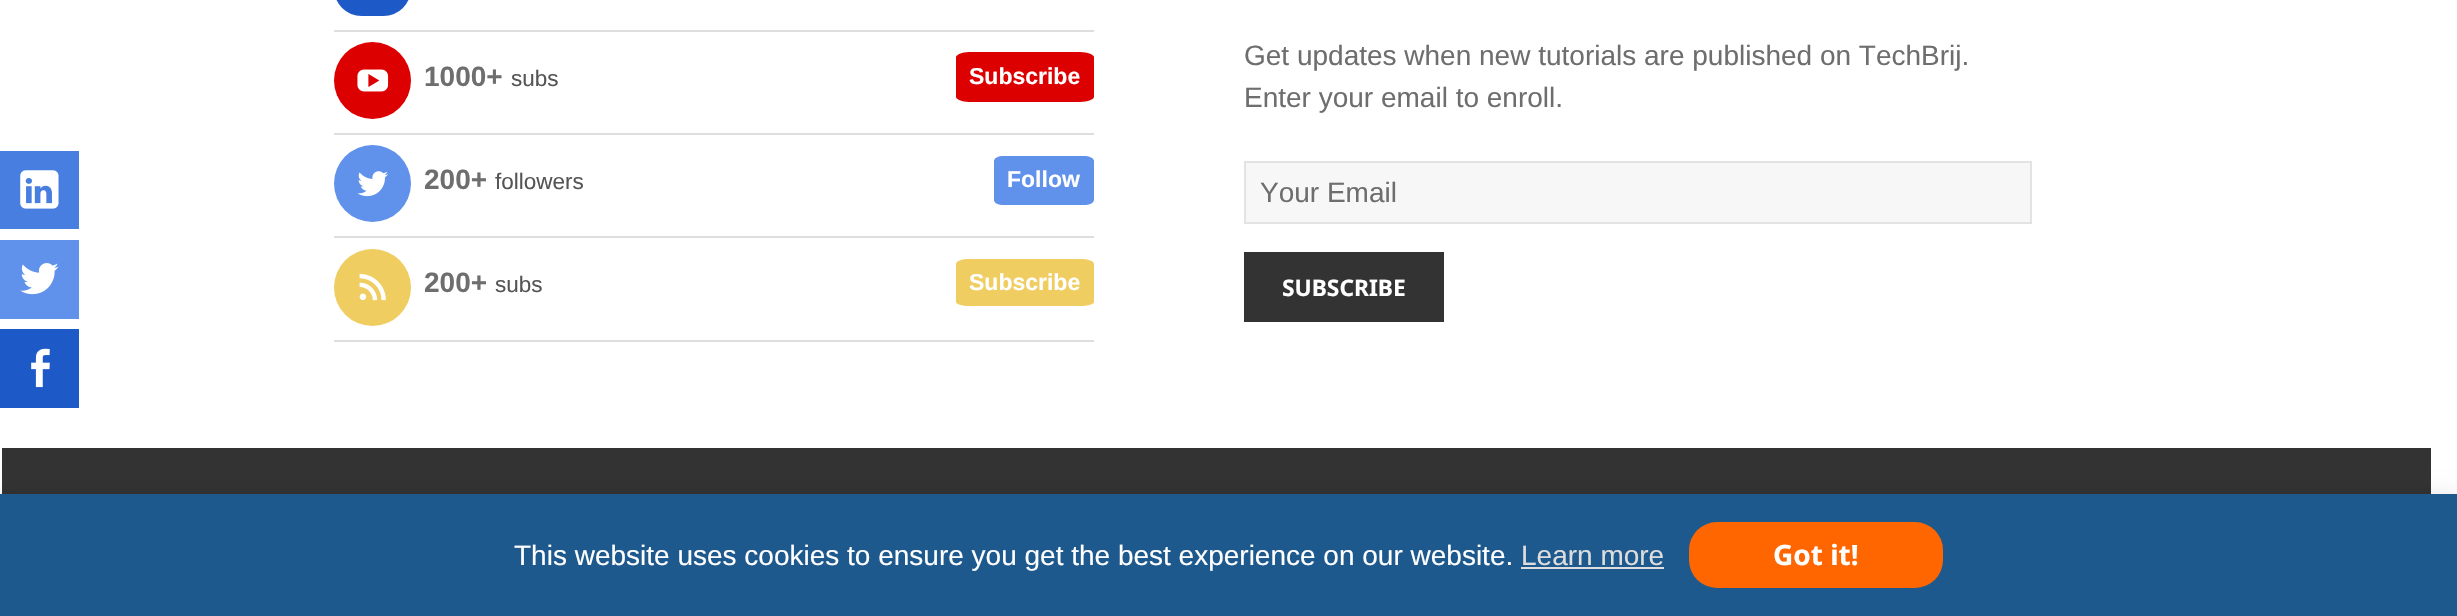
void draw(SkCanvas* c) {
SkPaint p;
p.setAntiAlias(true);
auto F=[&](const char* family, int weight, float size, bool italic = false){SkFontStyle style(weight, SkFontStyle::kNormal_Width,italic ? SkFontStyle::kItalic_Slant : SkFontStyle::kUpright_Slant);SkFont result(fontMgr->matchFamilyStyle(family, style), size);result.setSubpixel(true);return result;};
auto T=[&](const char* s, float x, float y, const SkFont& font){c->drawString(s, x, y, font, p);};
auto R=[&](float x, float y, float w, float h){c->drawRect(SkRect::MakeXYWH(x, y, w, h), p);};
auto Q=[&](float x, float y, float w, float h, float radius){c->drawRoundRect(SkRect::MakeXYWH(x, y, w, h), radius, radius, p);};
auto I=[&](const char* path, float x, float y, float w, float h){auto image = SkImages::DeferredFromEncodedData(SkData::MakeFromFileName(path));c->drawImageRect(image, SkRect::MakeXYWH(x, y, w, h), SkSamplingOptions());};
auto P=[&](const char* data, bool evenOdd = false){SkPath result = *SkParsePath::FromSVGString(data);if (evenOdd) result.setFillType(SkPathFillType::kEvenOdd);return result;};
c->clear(0xffffffff);
p.setColor(0xff487edf);
R(0,151,79,78);
I("1.png",20,170,39,39);
p.setColor(0xff6192eb);
R(0,240,79,79);
I("2.png",20,263,39,32);
p.setColor(0xff1d5ac7);
R(0,329,79,79);
I("3.png",31,348,19,40);
p.setColor(0xffdedede);
R(334,30,760,2);
p.setColor(0xff1d5ac7);
Q(334,-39,77,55,38.5);
p.setColor(0xffdedede);
R(334,133,760,2);
p.setColor(0xffdd0000);
c->drawCircle(372.5,80.5,38.5,p);
I("4.png",357,69,32,23);
auto f1 = F("Liberation Sans",700,28);
p.setColor(0xff6e6e6e);
T("1000+",424,86,f1);
auto f2 = F("Liberation Sans",400,22.5);
p.setColor(0xff555555);
T("subs",511,86,f2);
p.setColor(0xffdd0000);
c->drawPath(P("M969 52h111c8 0 14 3 14 5v40c0 2-6 5-14 5h-111c-7 0-13-3-13-5v-40c0-2 6-5 13-5z"),p);
auto f3 = F("Liberation Sans",700,23);
p.setColor(0xffffffff);
T("Subscribe",969,84,f3);
p.setColor(0xffdedede);
R(334,236,760,2);
p.setColor(0xff6192eb);
c->drawCircle(372.5,183.5,38.5,p);
I("5.png",357,171,31,26);
p.setColor(0xff6e6e6e);
T("200+",424,189,f1);
p.setColor(0xff555555);
T("followers",495,189,f2);
p.setColor(0xff6192eb);
c->drawPath(P("M1004 156h80c5 0 10 2 10 5v39c0 3-5 5-10 5h-80c-6 0-10-2-10-5v-39c0-3 4-5 10-5z"),p);
p.setColor(0xffffffff);
T("Follow",1007,187,f3);
p.setColor(0xffdedede);
R(334,340,760,2);
p.setColor(0xfff0cd61);
c->drawCircle(372.5,287.5,38.5,p);
I("6.png",359,273,27,28);
p.setColor(0xff6e6e6e);
T("200+",424,292,f1);
p.setColor(0xff555555);
T("subs",495,292,f2);
p.setColor(0xfff0cd61);
c->drawPath(P("M969 259h111c8 0 14 2 14 5v38c0 2-6 4-14 4h-111c-7 0-13-2-13-4v-38c0-3 6-5 13-5z"),p);
p.setColor(0xffffffff);
T("Subscribe",969,290,f3);
auto f4 = F("Liberation Sans",400,28);
p.setColor(0xff6e6e6e);
T("Get updates when new tutorials are published on TechBrij.",1244,65,f4);
T("Enter your email to enroll.",1244,107,f4);
p.setColor(0xfff7f7f7);
c->drawRect(SkRect::MakeXYWH(1245,162,786,61),p);
p.setStroke(true);
p.setStrokeWidth(2);
p.setColor(0xffe3e3e3);
c->drawRect(SkRect::MakeXYWH(1245,162,786,61),p);
p.setStroke(false);
p.setColor(0xff6e6e6e);
T("Your Email",1260,202,f4);
p.setColor(0xff333333);
R(1244,252,200,70);
auto f5 = F("Noto Sans",700,22.75);
p.setColor(0xffffffff);
T("SUBSCRIBE",1282,296,f5);
p.setColor(0xff333333);
R(2,448,2429,46);
p.setColor(0x1a000000);
p.setMaskFilter(SkMaskFilter::MakeBlur(kNormal_SkBlurStyle, 9));
c->drawRect(SkRect::MakeXYWH(0,494,2457,122),p);
p.setMaskFilter(nullptr);
p.setColor(0xff1e598e);
R(0,494,2457,122);
p.setColor(0xffffffff);
T("This website uses cookies to ensure you get the best experience on our website.",514,565,f4);
p.setColor(0xffdddddd);
T("Learn more",1521,565,f4);
R(1521,567,143,2);
p.setColor(0xffff6600);
Q(1689,522,254,66,28);
auto f6 = F("Noto Sans",700,28);
p.setColor(0xffffffff);
T("Got it!",1773,565,f6);
}
